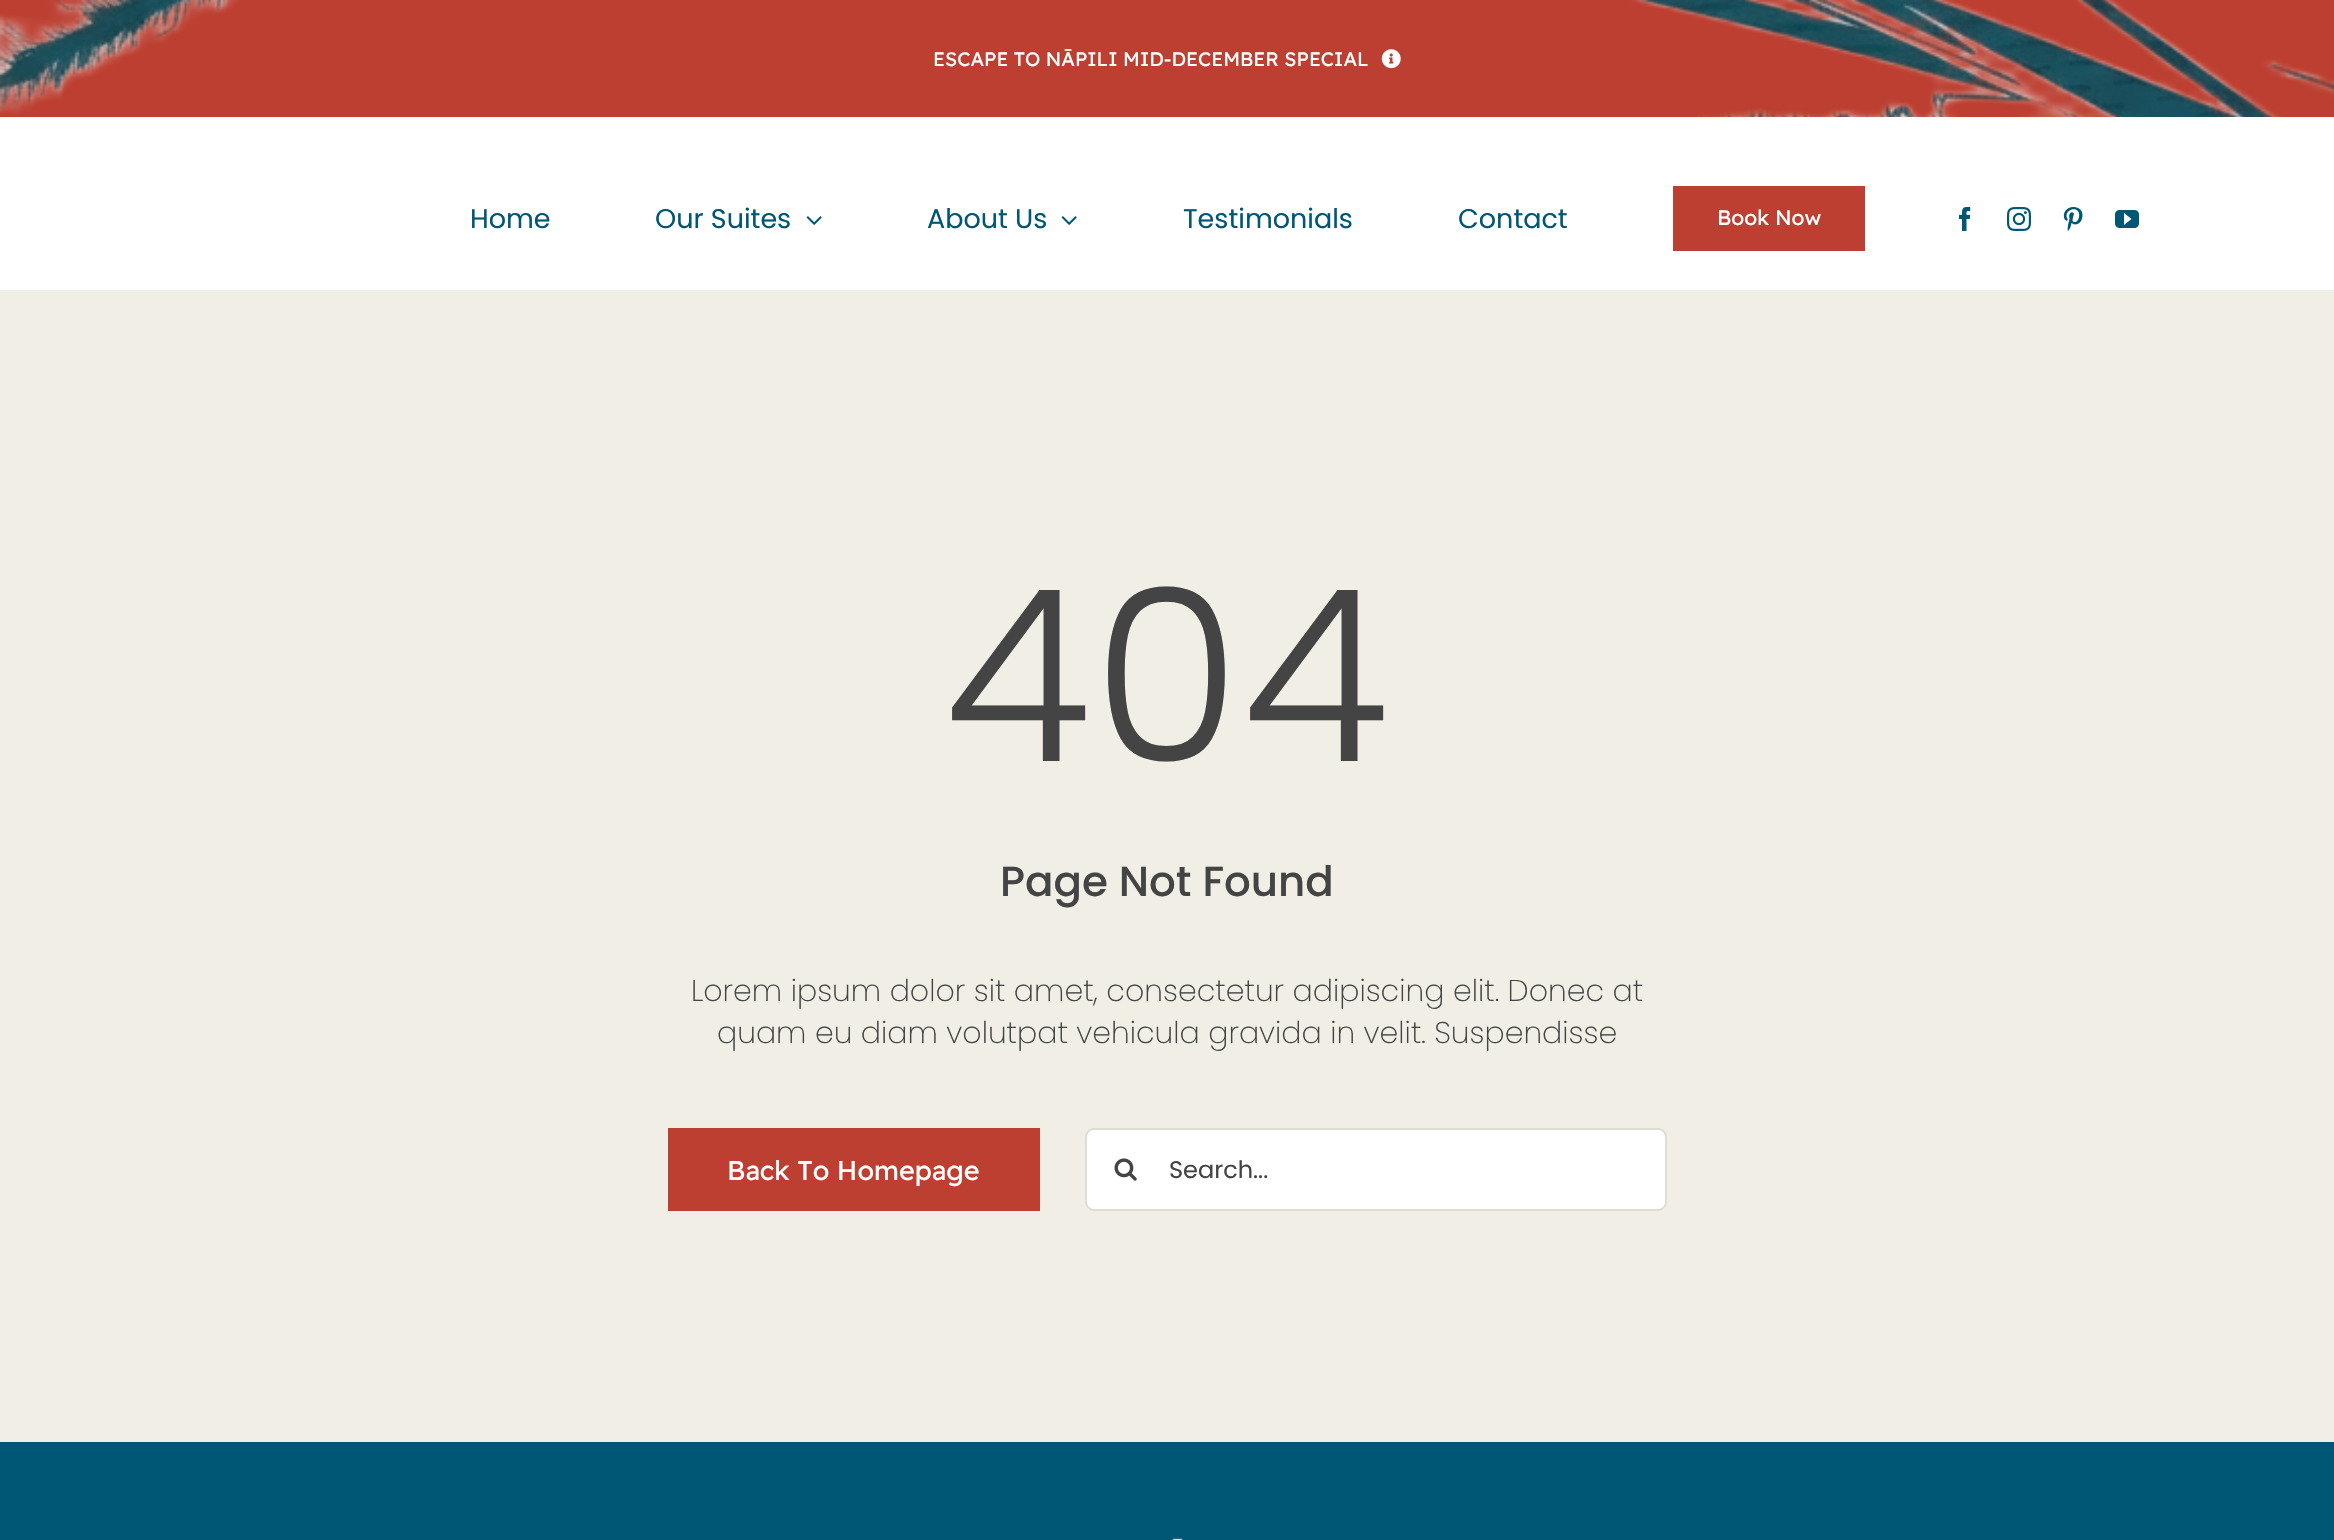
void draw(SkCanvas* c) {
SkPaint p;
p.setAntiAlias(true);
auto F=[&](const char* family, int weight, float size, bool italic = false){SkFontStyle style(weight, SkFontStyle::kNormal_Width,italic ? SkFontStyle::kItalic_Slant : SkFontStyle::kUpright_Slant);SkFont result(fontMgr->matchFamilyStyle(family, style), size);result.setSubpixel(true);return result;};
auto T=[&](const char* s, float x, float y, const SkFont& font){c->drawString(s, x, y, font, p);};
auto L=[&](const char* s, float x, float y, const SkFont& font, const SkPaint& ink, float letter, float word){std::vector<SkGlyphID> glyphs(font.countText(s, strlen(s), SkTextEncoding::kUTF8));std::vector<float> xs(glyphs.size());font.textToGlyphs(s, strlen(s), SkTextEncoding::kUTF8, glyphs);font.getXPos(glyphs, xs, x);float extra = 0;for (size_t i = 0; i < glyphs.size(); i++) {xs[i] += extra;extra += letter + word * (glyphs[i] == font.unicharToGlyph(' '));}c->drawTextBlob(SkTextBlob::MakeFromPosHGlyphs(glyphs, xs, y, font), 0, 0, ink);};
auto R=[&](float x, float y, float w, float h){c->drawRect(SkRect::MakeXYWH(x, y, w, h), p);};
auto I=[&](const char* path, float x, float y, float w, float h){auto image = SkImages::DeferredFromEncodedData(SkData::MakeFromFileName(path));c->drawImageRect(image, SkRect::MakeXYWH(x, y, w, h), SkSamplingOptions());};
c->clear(0xfff0eee5);
p.setColor(0xffbc3f31);
R(0,0,2334,117);
I("1.png",0,0,2334,117);
auto f1 = F("Readex Pro",400,19.5);
p.setColor(0xffffffff);
T("ESCAPE TO NĀPILI MID-DECEMBER SPECIAL",933,66,f1);
I("2.png",1381,49,20,20);
R(0,117,2334,173);
auto f2 = F("Poppins",400,27);
p.setColor(0xff005775);
T("Home",470,228,f2);
T("Our Suites",655,228,f2);
I("3.png",806,216,16,9);
T("About Us",927,228,f2);
I("3.png",1061,216,16,9);
T("Testimonials",1183,228,f2);
T("Contact",1458,228,f2);
p.setColor(0xffbc3f31);
R(1673,186,192,65);
auto f3 = F("Readex Pro",400,21);
p.setColor(0xffffffff);
T("Book Now",1717,225,f3);
I("4.png",1959,207,12,24);
I("5.png",2007,207,24,24);
I("6.png",2063,207,20,24);
I("7.png",2115,210,24,18);
auto f4 = F("Poppins",300,240);
p.setColor(0xff444445);
L("404",944,761,f4,p,1.5,0);
auto f5 = F("Poppins",500,42);
T("Page Not Found",1000,896,f5);
auto f6 = F("Poppins",200,30);
T("Lorem ipsum dolor sit amet, consectetur adipiscing elit. Donec at",691,1001,f6);
T("quam eu diam volutpat vehicula gravida in velit. Suspendisse",717,1043,f6);
p.setColor(0xffbc3f31);
R(668,1128,372,83);
auto f7 = F("Readex Pro",400,27);
p.setColor(0xffffffff);
T("Back To Homepage",727,1180,f7);
c->drawRoundRect(SkRect::MakeXYWH(1086,1129,580,81),8,8,p);
p.setStroke(true);
p.setStrokeWidth(2);
p.setColor(0xffdfddd2);
c->drawRoundRect(SkRect::MakeXYWH(1086,1129,580,81),8,8,p);
I("8.png",1114,1158,23,23);
auto f8 = F("Poppins",400,24);
p.setStroke(false);
p.setColor(0xff444445);
T("Search...",1169,1178,f8);
p.setColor(0xff005775);
R(0,1442,2334,98);
I("9.png",1172,1538,11,2);
}
